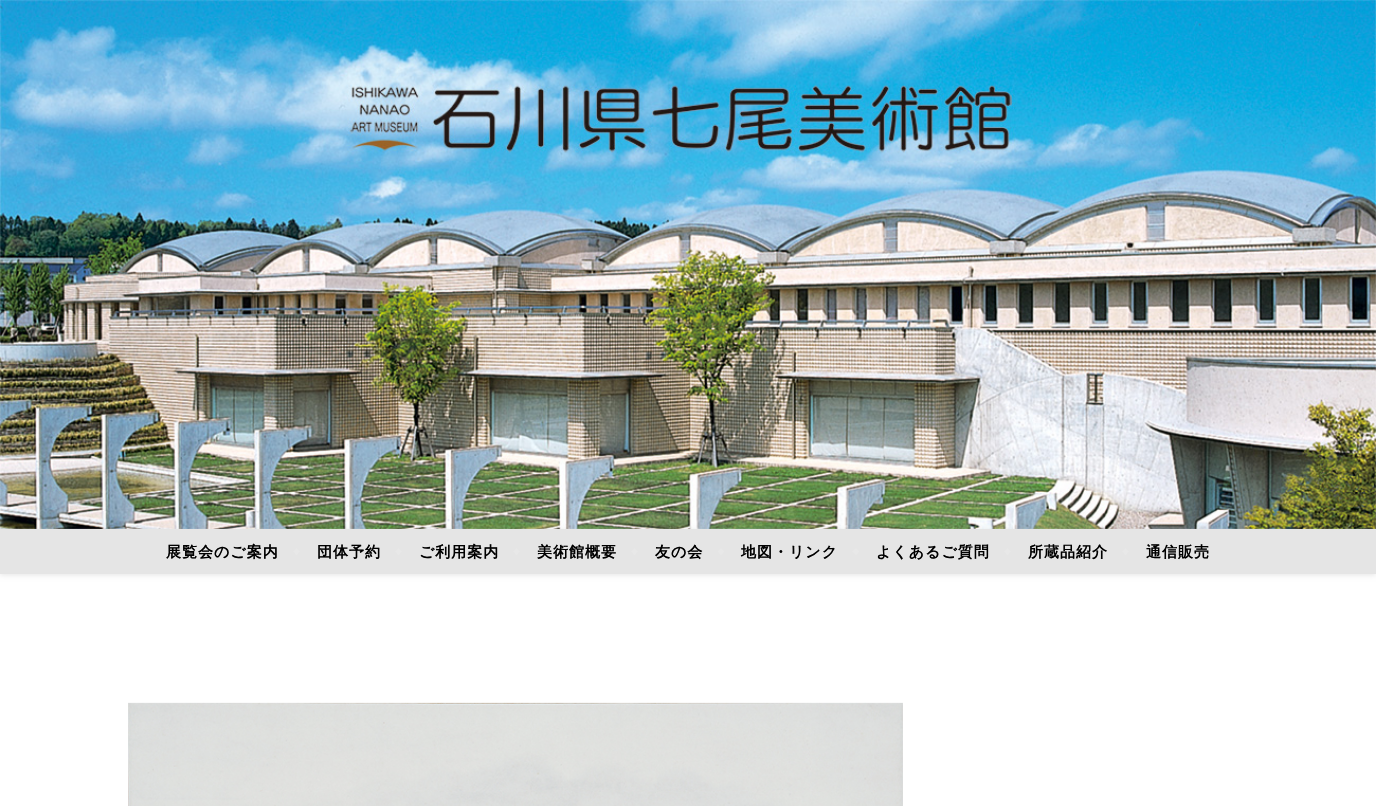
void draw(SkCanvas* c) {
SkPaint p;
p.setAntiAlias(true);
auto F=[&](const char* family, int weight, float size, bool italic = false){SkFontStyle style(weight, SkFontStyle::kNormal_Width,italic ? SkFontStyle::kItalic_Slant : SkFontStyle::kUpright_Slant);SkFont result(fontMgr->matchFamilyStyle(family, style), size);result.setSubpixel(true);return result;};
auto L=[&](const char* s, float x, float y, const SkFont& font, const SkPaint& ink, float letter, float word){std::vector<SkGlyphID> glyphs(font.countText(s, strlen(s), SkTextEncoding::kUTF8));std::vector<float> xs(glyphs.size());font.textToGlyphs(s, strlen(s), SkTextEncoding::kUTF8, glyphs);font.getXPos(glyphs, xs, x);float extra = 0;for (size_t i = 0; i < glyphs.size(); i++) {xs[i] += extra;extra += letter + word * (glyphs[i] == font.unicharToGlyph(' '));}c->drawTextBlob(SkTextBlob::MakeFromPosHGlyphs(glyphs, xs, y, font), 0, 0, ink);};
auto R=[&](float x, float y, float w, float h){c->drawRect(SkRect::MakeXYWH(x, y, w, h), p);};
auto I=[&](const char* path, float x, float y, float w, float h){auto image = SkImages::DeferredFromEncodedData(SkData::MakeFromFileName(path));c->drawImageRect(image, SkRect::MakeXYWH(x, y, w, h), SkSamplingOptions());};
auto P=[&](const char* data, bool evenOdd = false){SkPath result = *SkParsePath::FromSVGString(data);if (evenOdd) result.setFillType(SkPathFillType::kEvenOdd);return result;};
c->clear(0xffffffff);
I("1.png",0,0,1,529);
I("2.png",1,0,1375,529);
p.setColor(0x1a000000);
p.setMaskFilter(SkMaskFilter::MakeBlur(kNormal_SkBlurStyle, 2.5));
c->drawRect(SkRect::MakeXYWH(0,530,1376,45),p);
p.setMaskFilter(nullptr);
p.setColor(0xffe5e5e5);
R(0,529,1376,45);
auto f1 = F("WenQuanYi Zen Hei",700,15);
p.setColor(0xff000000);
L("展覧会のご案内",166,557,f1,p,1,0);
p.setColor(0xffe8e8e8);
c->drawPath(P("M293 551.5l3.5-3.5l3.5 3.5l-3.5 4z"),p);
p.setColor(0xff000000);
L("団体予約",317,557,f1,p,1,0);
p.setColor(0xffe8e8e8);
c->drawPath(P("M395 551.5l3.5-3.5l3.5 3.5l-3.5 4z"),p);
p.setColor(0xff000000);
L("ご利用案内",419,557,f1,p,1,0);
p.setColor(0xffe8e8e8);
c->drawPath(P("M513 551.5l3.5-3.5l3.5 3.5l-3.5 4z"),p);
p.setColor(0xff000000);
L("美術館概要",537,557,f1,p,1,0);
p.setColor(0xffe8e8e8);
c->drawPath(P("M631 551.5l3.5-3.5l3.5 3.5l-3.5 4z"),p);
p.setColor(0xff000000);
L("友の会",655,557,f1,p,1,0);
p.setColor(0xffe8e8e8);
c->drawPath(P("M717.5 551.5l3.5-3.5l3.5 3.5l-3.5 4z"),p);
p.setColor(0xff000000);
L("地図・リンク",741,557,f1,p,1,0);
p.setColor(0xffe8e8e8);
c->drawPath(P("M852 551.5l4-3.5l3.5 3.5l-3.5 4z"),p);
p.setColor(0xff000000);
L("よくあるご質問",876,557,f1,p,1,0);
p.setColor(0xffe8e8e8);
c->drawPath(P("M1004 551.5l3.5-3.5l3.5 3.5l-3.5 4z"),p);
p.setColor(0xff000000);
L("所蔵品紹介",1028,557,f1,p,1,0);
p.setColor(0xffe8e8e8);
c->drawPath(P("M1122 551.5l3.5-3.5l3.5 3.5l-3.5 4z"),p);
p.setColor(0xff000000);
L("通信販売",1146,557,f1,p,1,0);
I("3.png",128,702,775,104);
}
